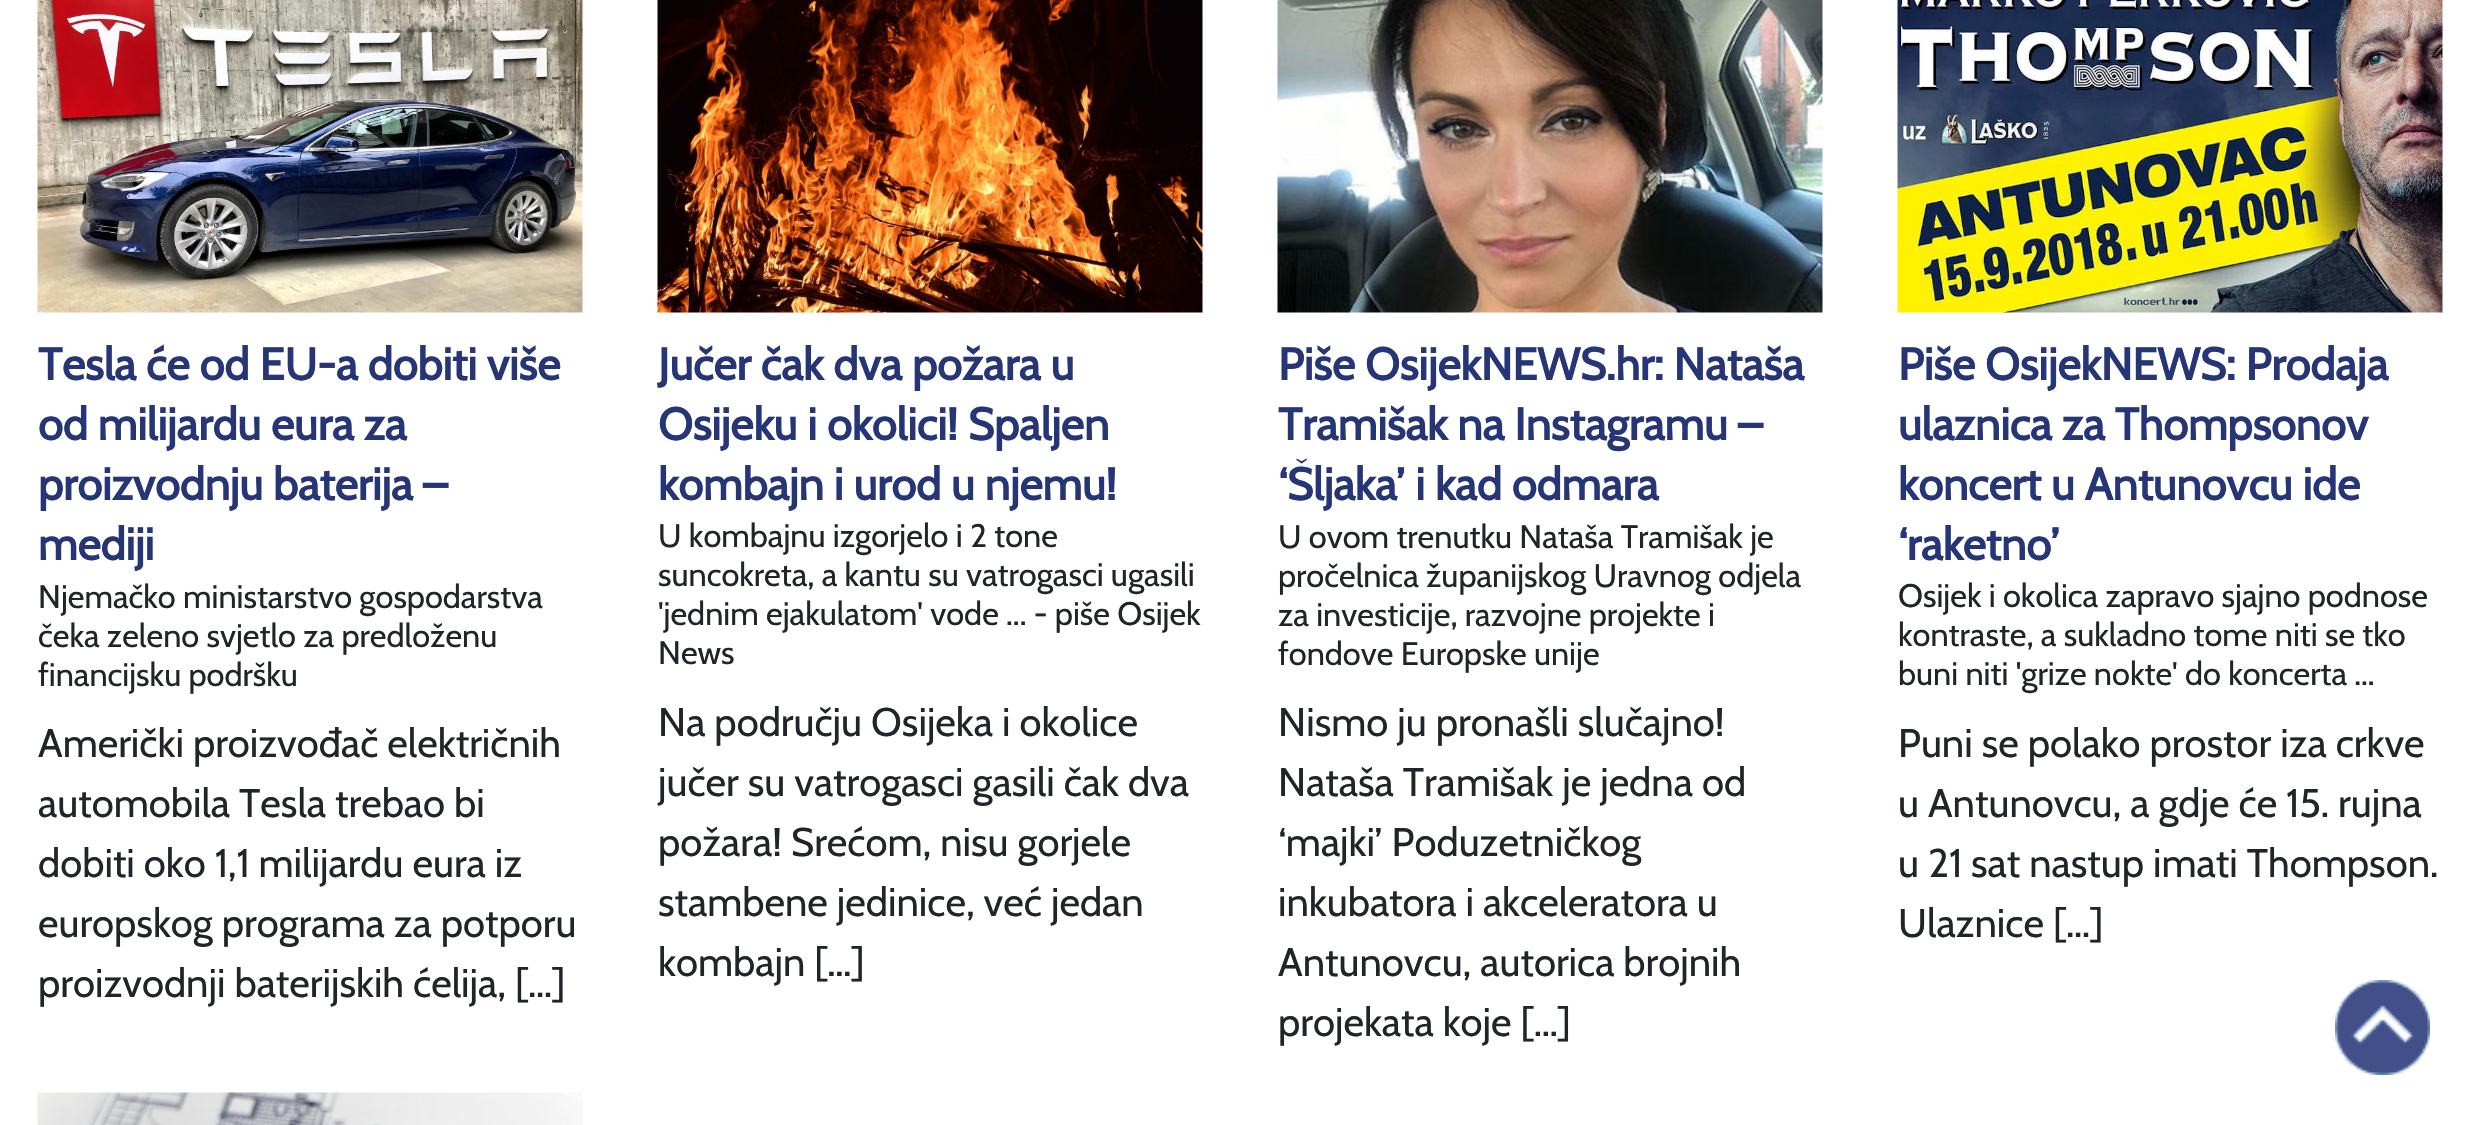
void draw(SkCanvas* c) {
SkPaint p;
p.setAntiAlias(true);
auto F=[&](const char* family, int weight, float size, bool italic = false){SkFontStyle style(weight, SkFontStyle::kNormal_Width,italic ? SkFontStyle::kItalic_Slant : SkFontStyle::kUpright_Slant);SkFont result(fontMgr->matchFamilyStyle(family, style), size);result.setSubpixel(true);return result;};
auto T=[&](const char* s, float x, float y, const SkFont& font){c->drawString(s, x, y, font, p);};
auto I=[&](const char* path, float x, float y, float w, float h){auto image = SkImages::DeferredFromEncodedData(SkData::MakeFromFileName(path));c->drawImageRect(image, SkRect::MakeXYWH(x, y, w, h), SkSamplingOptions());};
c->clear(0xffffffff);
I("1.png",37,0,546,313);
auto f1 = F("Cabin",700,45);
p.setColor(0xff263576);
T("Tesla će od EU-a dobiti više",38,380,f1);
T("od milijardu eura za",38,440,f1);
T("proizvodnju baterija –",38,500,f1);
T("mediji",38,560,f1);
auto f2 = F("Cabin",400,32.5);
p.setColor(0xff212529);
T("Njemačko ministarstvo gospodarstva",38,608,f2);
T("čeka zeleno svjetlo za predloženu",38,647,f2);
T("financijsku podršku",38,686,f2);
auto f3 = F("Cabin",400,40);
T("Američki proizvođač električnih",38,757,f3);
T("automobila Tesla trebao bi",38,817,f3);
T("dobiti oko 1,1 milijardu eura iz",38,877,f3);
T("europskog programa za potporu",38,937,f3);
T("proizvodnji baterijskih ćelija, […]",38,997,f3);
I("2.png",657,0,546,313);
p.setColor(0xff263576);
T("Jučer čak dva požara u",658,380,f1);
T("Osijeku i okolici! Spaljen",658,440,f1);
T("kombajn i urod u njemu!",658,500,f1);
p.setColor(0xff212529);
T("U kombajnu izgorjelo i 2 tone",658,547,f2);
T("suncokreta, a kantu su vatrogasci ugasili",658,586,f2);
T("'jednim ejakulatom' vode ... - piše Osijek",658,625,f2);
T("News",658,664,f2);
T("Na području Osijeka i okolice",658,736,f3);
T("jučer su vatrogasci gasili čak dva",658,796,f3);
T("požara! Srećom, nisu gorjele",658,856,f3);
T("stambene jedinice, već jedan",658,916,f3);
T("kombajn […]",658,976,f3);
I("3.png",1277,0,546,313);
p.setColor(0xff263576);
T("Piše OsijekNEWS.hr: Nataša",1278,380,f1);
T("Tramišak na Instagramu –",1278,440,f1);
T("‘Šljaka’ i kad odmara",1278,500,f1);
p.setColor(0xff212529);
T("U ovom trenutku Nataša Tramišak je",1278,548,f2);
T("pročelnica županijskog Uravnog odjela",1278,587,f2);
T("za investicije, razvojne projekte i",1278,626,f2);
T("fondove Europske unije",1278,665,f2);
T("Nismo ju pronašli slučajno!",1278,736,f3);
T("Nataša Tramišak je jedna od",1278,796,f3);
T("‘majki’ Poduzetničkog",1278,856,f3);
T("inkubatora i akceleratora u",1278,916,f3);
T("Antunovcu, autorica brojnih",1278,976,f3);
T("projekata koje […]",1278,1036,f3);
I("4.png",1897,0,546,313);
p.setColor(0xff263576);
T("Piše OsijekNEWS: Prodaja",1898,380,f1);
T("ulaznica za Thompsonov",1898,440,f1);
T("koncert u Antunovcu ide",1898,500,f1);
T("‘raketno’",1898,560,f1);
p.setColor(0xff212529);
T("Osijek i okolica zapravo sjajno podnose",1898,607,f2);
T("kontraste, a sukladno tome niti se tko",1898,646,f2);
T("buni niti 'grize nokte' do koncerta ...",1898,685,f2);
T("Puni se polako prostor iza crkve",1898,757,f3);
T("u Antunovcu, a gdje će 15. rujna",1898,817,f3);
T("u 21 sat nastup imati Thompson.",1898,877,f3);
T("Ulaznice […]",1898,937,f3);
I("5.png",37,1092,546,33);
I("6.png",2335,980,95,95);
}
